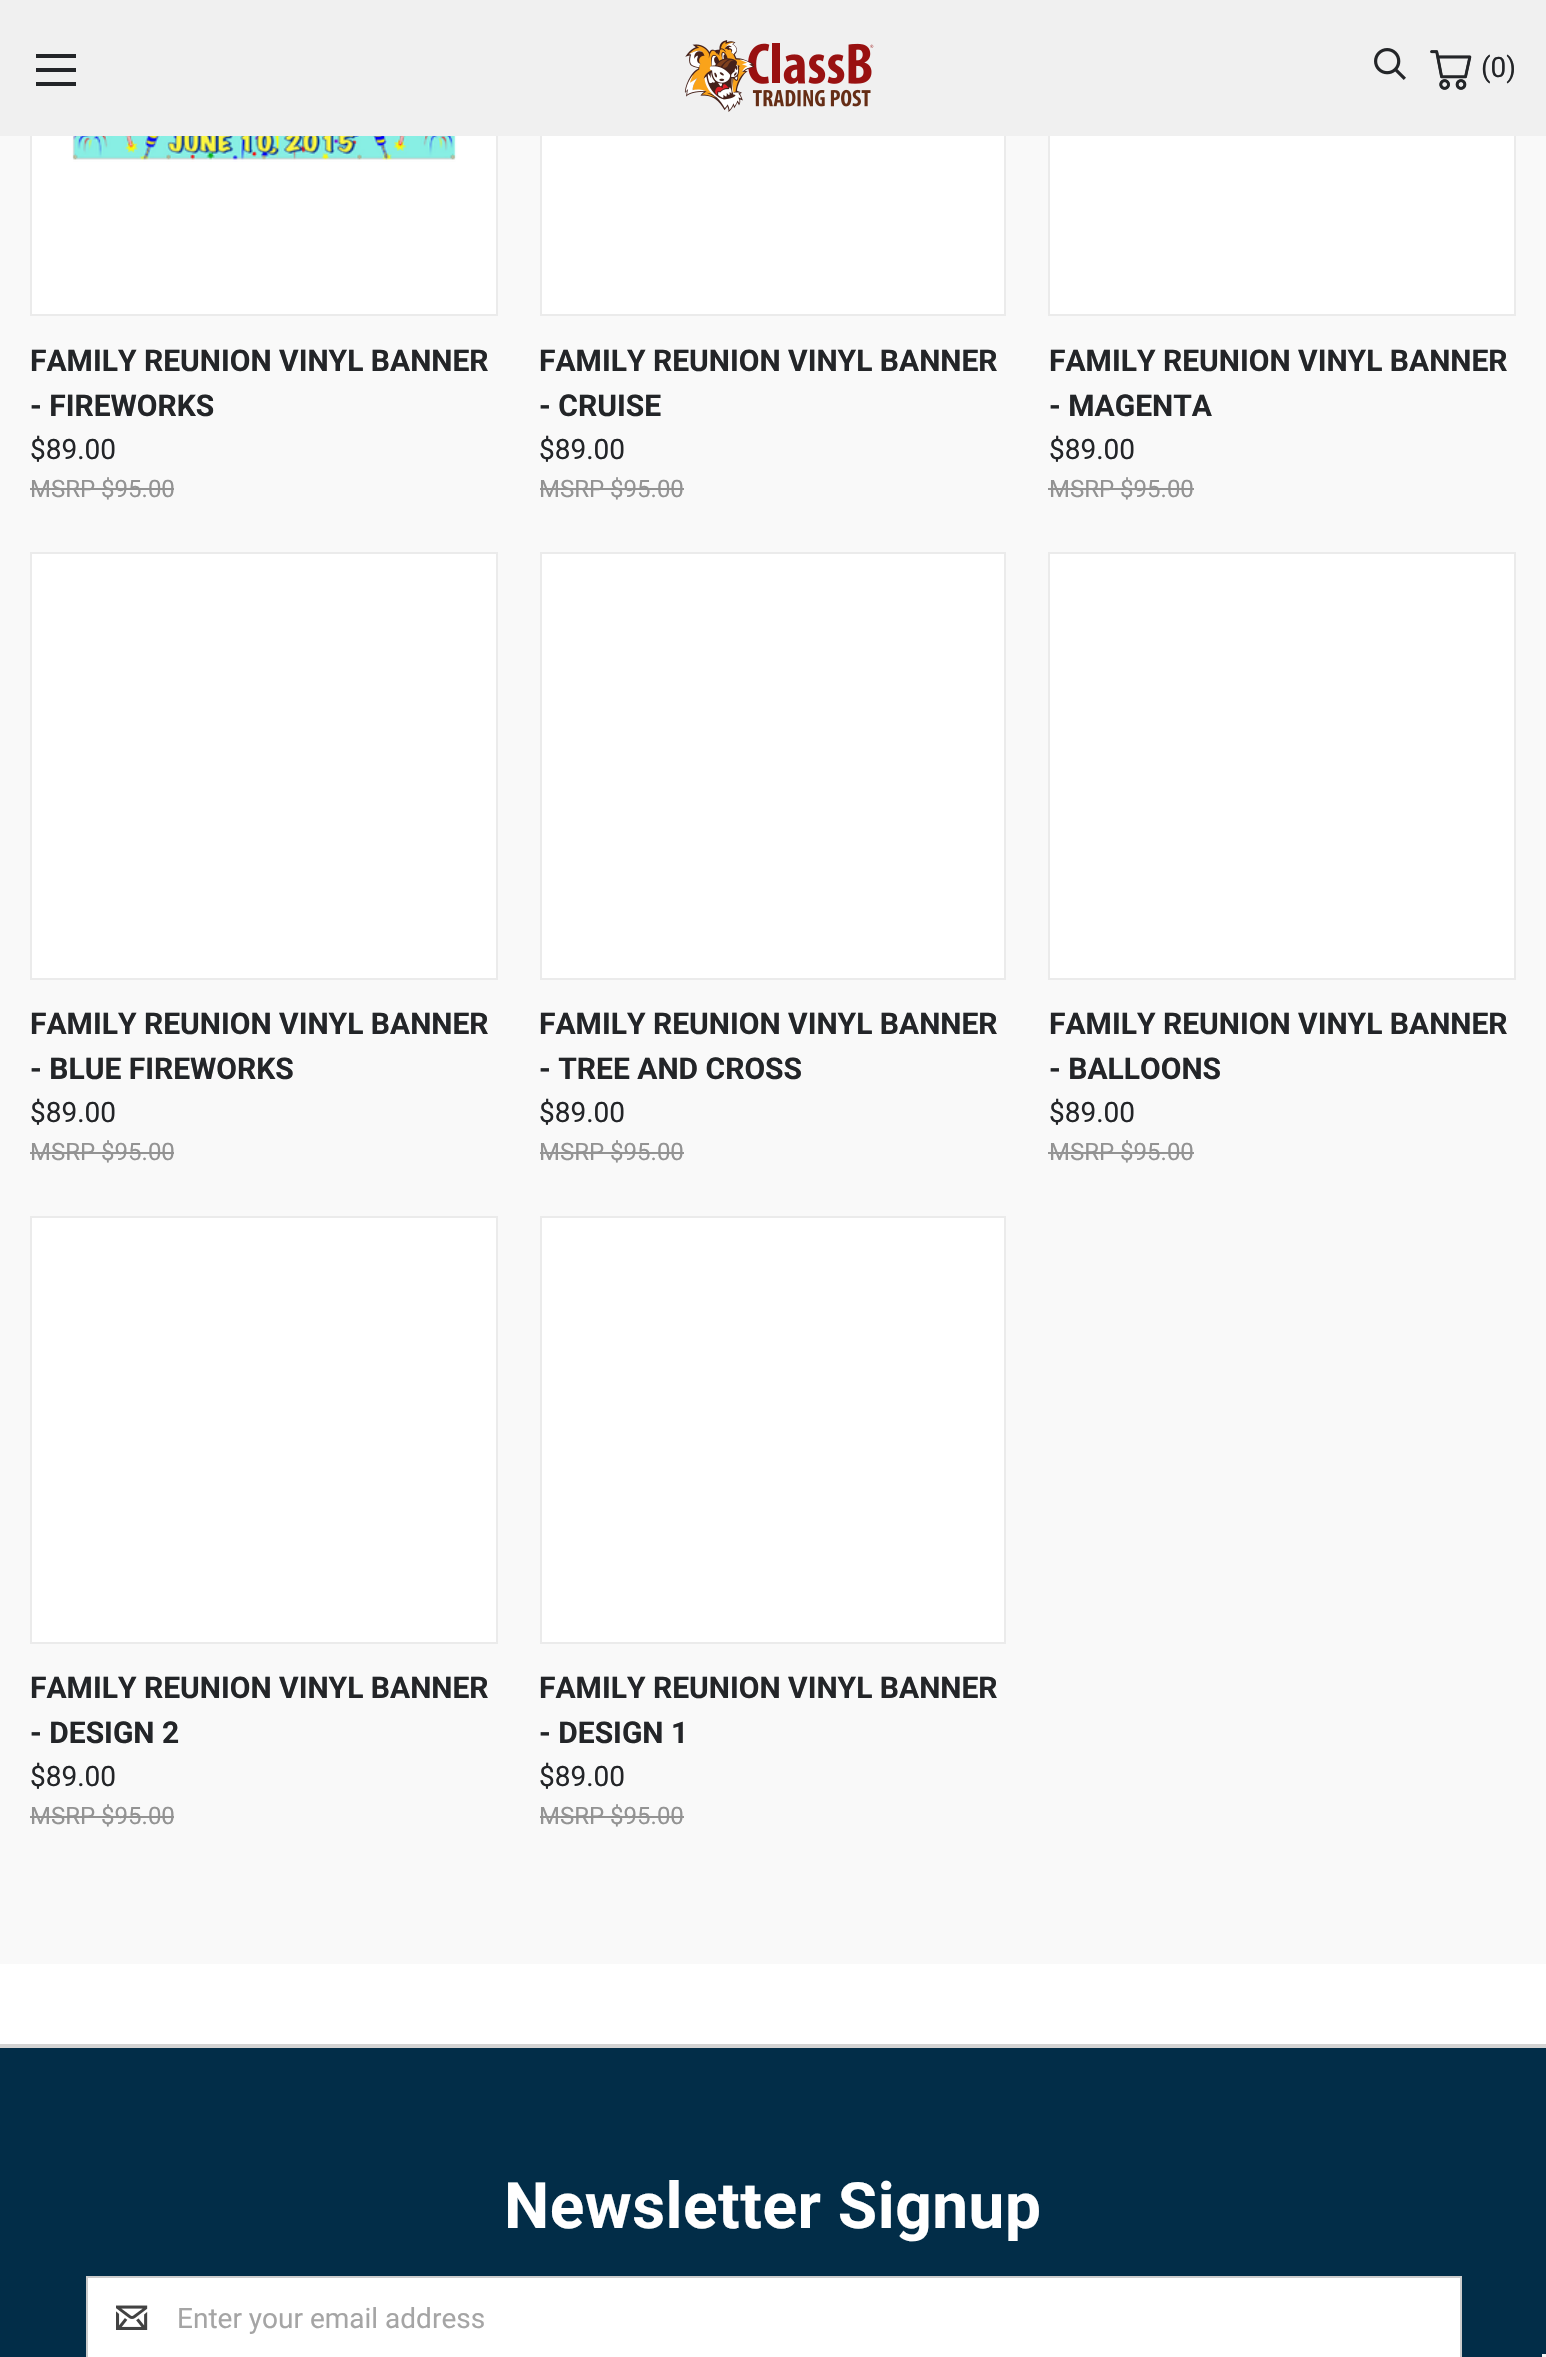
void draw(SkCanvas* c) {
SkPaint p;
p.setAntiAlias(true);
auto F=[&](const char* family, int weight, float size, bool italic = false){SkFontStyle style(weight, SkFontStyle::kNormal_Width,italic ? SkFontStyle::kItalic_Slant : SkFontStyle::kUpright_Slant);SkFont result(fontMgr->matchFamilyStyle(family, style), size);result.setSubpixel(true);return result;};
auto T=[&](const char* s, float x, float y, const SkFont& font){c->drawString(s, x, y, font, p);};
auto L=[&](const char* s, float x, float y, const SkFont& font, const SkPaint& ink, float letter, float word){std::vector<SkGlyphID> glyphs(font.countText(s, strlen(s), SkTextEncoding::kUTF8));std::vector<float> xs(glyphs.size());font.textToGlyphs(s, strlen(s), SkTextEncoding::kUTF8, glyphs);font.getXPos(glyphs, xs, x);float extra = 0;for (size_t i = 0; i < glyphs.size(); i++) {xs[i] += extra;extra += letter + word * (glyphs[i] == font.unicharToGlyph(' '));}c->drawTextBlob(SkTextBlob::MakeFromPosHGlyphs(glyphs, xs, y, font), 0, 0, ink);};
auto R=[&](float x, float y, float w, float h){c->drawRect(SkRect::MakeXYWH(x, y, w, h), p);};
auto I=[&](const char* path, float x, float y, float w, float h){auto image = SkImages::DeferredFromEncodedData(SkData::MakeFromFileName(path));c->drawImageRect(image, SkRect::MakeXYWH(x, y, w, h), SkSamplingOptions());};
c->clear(0xffffffff);
p.setColor(0xfff9f9f9);
R(0,136,1546,1828);
p.setColor(0xffffffff);
R(32,136,464,178);
p.setStroke(true);
p.setStrokeWidth(2);
p.setColor(0xffebebeb);
c->drawRect(SkRect::MakeXYWH(31,-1,466,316),p);
p.setStroke(false);
p.setColor(0xffffffff);
R(542,136,462,178);
p.setStroke(true);
p.setColor(0xffebebeb);
c->drawRect(SkRect::MakeXYWH(541,-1,464,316),p);
p.setStroke(false);
p.setColor(0xffffffff);
R(1050,136,464,178);
p.setStroke(true);
p.setColor(0xffebebeb);
c->drawRect(SkRect::MakeXYWH(1049,-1,466,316),p);
p.setStroke(false);
p.setColor(0xfff0f0f0);
R(0,0,1546,136);
p.setColor(0xff232528);
R(36,68,40,4);
R(36,54,40,4);
R(36,82,40,4);
I("1.png",684,40,190,72);
I("2.png",1374,48,32,32);
I("3.png",1430,50,42,40);
auto f1 = F("Roboto",400,28);
T("(0)",1481,77,f1);
I("4.png",72,136,385,26);
auto f2 = F("Roboto",700,30);
T("FAMILY REUNION VINYL BANNER",30,371,f2);
T("- FIREWORKS",30,416,f2);
T("$89.00",30,459,f1);
auto f3 = F("Roboto",400,24);
p.setColor(0xff939393);
T("MSRP $95.00",30,497,f3);
R(30,488,144,2);
p.setColor(0xff232528);
T("FAMILY REUNION VINYL BANNER",539,371,f2);
T("- CRUISE",539,416,f2);
T("$89.00",539,459,f1);
p.setColor(0xff939393);
T("MSRP $95.00",539,497,f3);
R(540,488,144,2);
p.setColor(0xff232528);
T("FAMILY REUNION VINYL BANNER",1049,371,f2);
T("- MAGENTA",1049,416,f2);
T("$89.00",1049,459,f1);
p.setColor(0xff939393);
T("MSRP $95.00",1049,497,f3);
R(1048,488,146,2);
p.setColor(0xffffffff);
c->drawRect(SkRect::MakeXYWH(31,553,466,426),p);
p.setStroke(true);
p.setColor(0xffebebeb);
c->drawRect(SkRect::MakeXYWH(31,553,466,426),p);
p.setStroke(false);
p.setColor(0xff232528);
T("FAMILY REUNION VINYL BANNER",30,1034,f2);
T("- BLUE FIREWORKS",30,1079,f2);
T("$89.00",30,1122,f1);
p.setColor(0xff939393);
T("MSRP $95.00",30,1160,f3);
R(30,1152,144,2);
p.setColor(0xffffffff);
c->drawRect(SkRect::MakeXYWH(541,553,464,426),p);
p.setStroke(true);
p.setColor(0xffebebeb);
c->drawRect(SkRect::MakeXYWH(541,553,464,426),p);
p.setStroke(false);
p.setColor(0xff232528);
T("FAMILY REUNION VINYL BANNER",539,1034,f2);
T("- TREE AND CROSS",539,1079,f2);
T("$89.00",539,1122,f1);
p.setColor(0xff939393);
T("MSRP $95.00",539,1160,f3);
R(540,1152,144,2);
p.setColor(0xffffffff);
c->drawRect(SkRect::MakeXYWH(1049,553,466,426),p);
p.setStroke(true);
p.setColor(0xffebebeb);
c->drawRect(SkRect::MakeXYWH(1049,553,466,426),p);
p.setStroke(false);
p.setColor(0xff232528);
T("FAMILY REUNION VINYL BANNER",1049,1034,f2);
T("- BALLOONS",1049,1079,f2);
T("$89.00",1049,1122,f1);
p.setColor(0xff939393);
T("MSRP $95.00",1049,1160,f3);
R(1048,1152,146,2);
p.setColor(0xffffffff);
c->drawRect(SkRect::MakeXYWH(31,1217,466,426),p);
p.setStroke(true);
p.setColor(0xffebebeb);
c->drawRect(SkRect::MakeXYWH(31,1217,466,426),p);
p.setStroke(false);
p.setColor(0xff232528);
T("FAMILY REUNION VINYL BANNER",30,1698,f2);
T("- DESIGN 2",30,1743,f2);
T("$89.00",30,1786,f1);
p.setColor(0xff939393);
T("MSRP $95.00",30,1824,f3);
R(30,1816,144,2);
p.setColor(0xffffffff);
c->drawRect(SkRect::MakeXYWH(541,1217,464,426),p);
p.setStroke(true);
p.setColor(0xffebebeb);
c->drawRect(SkRect::MakeXYWH(541,1217,464,426),p);
p.setStroke(false);
p.setColor(0xff232528);
T("FAMILY REUNION VINYL BANNER",539,1698,f2);
T("- DESIGN 1",539,1743,f2);
T("$89.00",539,1786,f1);
p.setColor(0xff939393);
T("MSRP $95.00",539,1824,f3);
R(540,1816,144,2);
p.setColor(0xff022d48);
R(0,2048,1546,309);
p.setColor(0xffd3d3d3);
R(0,2044,1546,4);
auto f4 = F("Roboto",700,64);
p.setColor(0xffffffff);
L("Newsletter Signup",504,2228,f4,p,.5,0);
c->drawRect(SkRect::MakeXYWH(87,2277,1374,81),p);
p.setStroke(true);
p.setColor(0xffcccccc);
c->drawRect(SkRect::MakeXYWH(87,2277,1374,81),p);
I("5.png",116,2305,32,25);
p.setStroke(false);
p.setColor(0xffa5a5a5);
T("Enter your email address",177,2328,f1);
p.setColor(0xfff5f5f5);
R(1542,2354,4,3);
}
